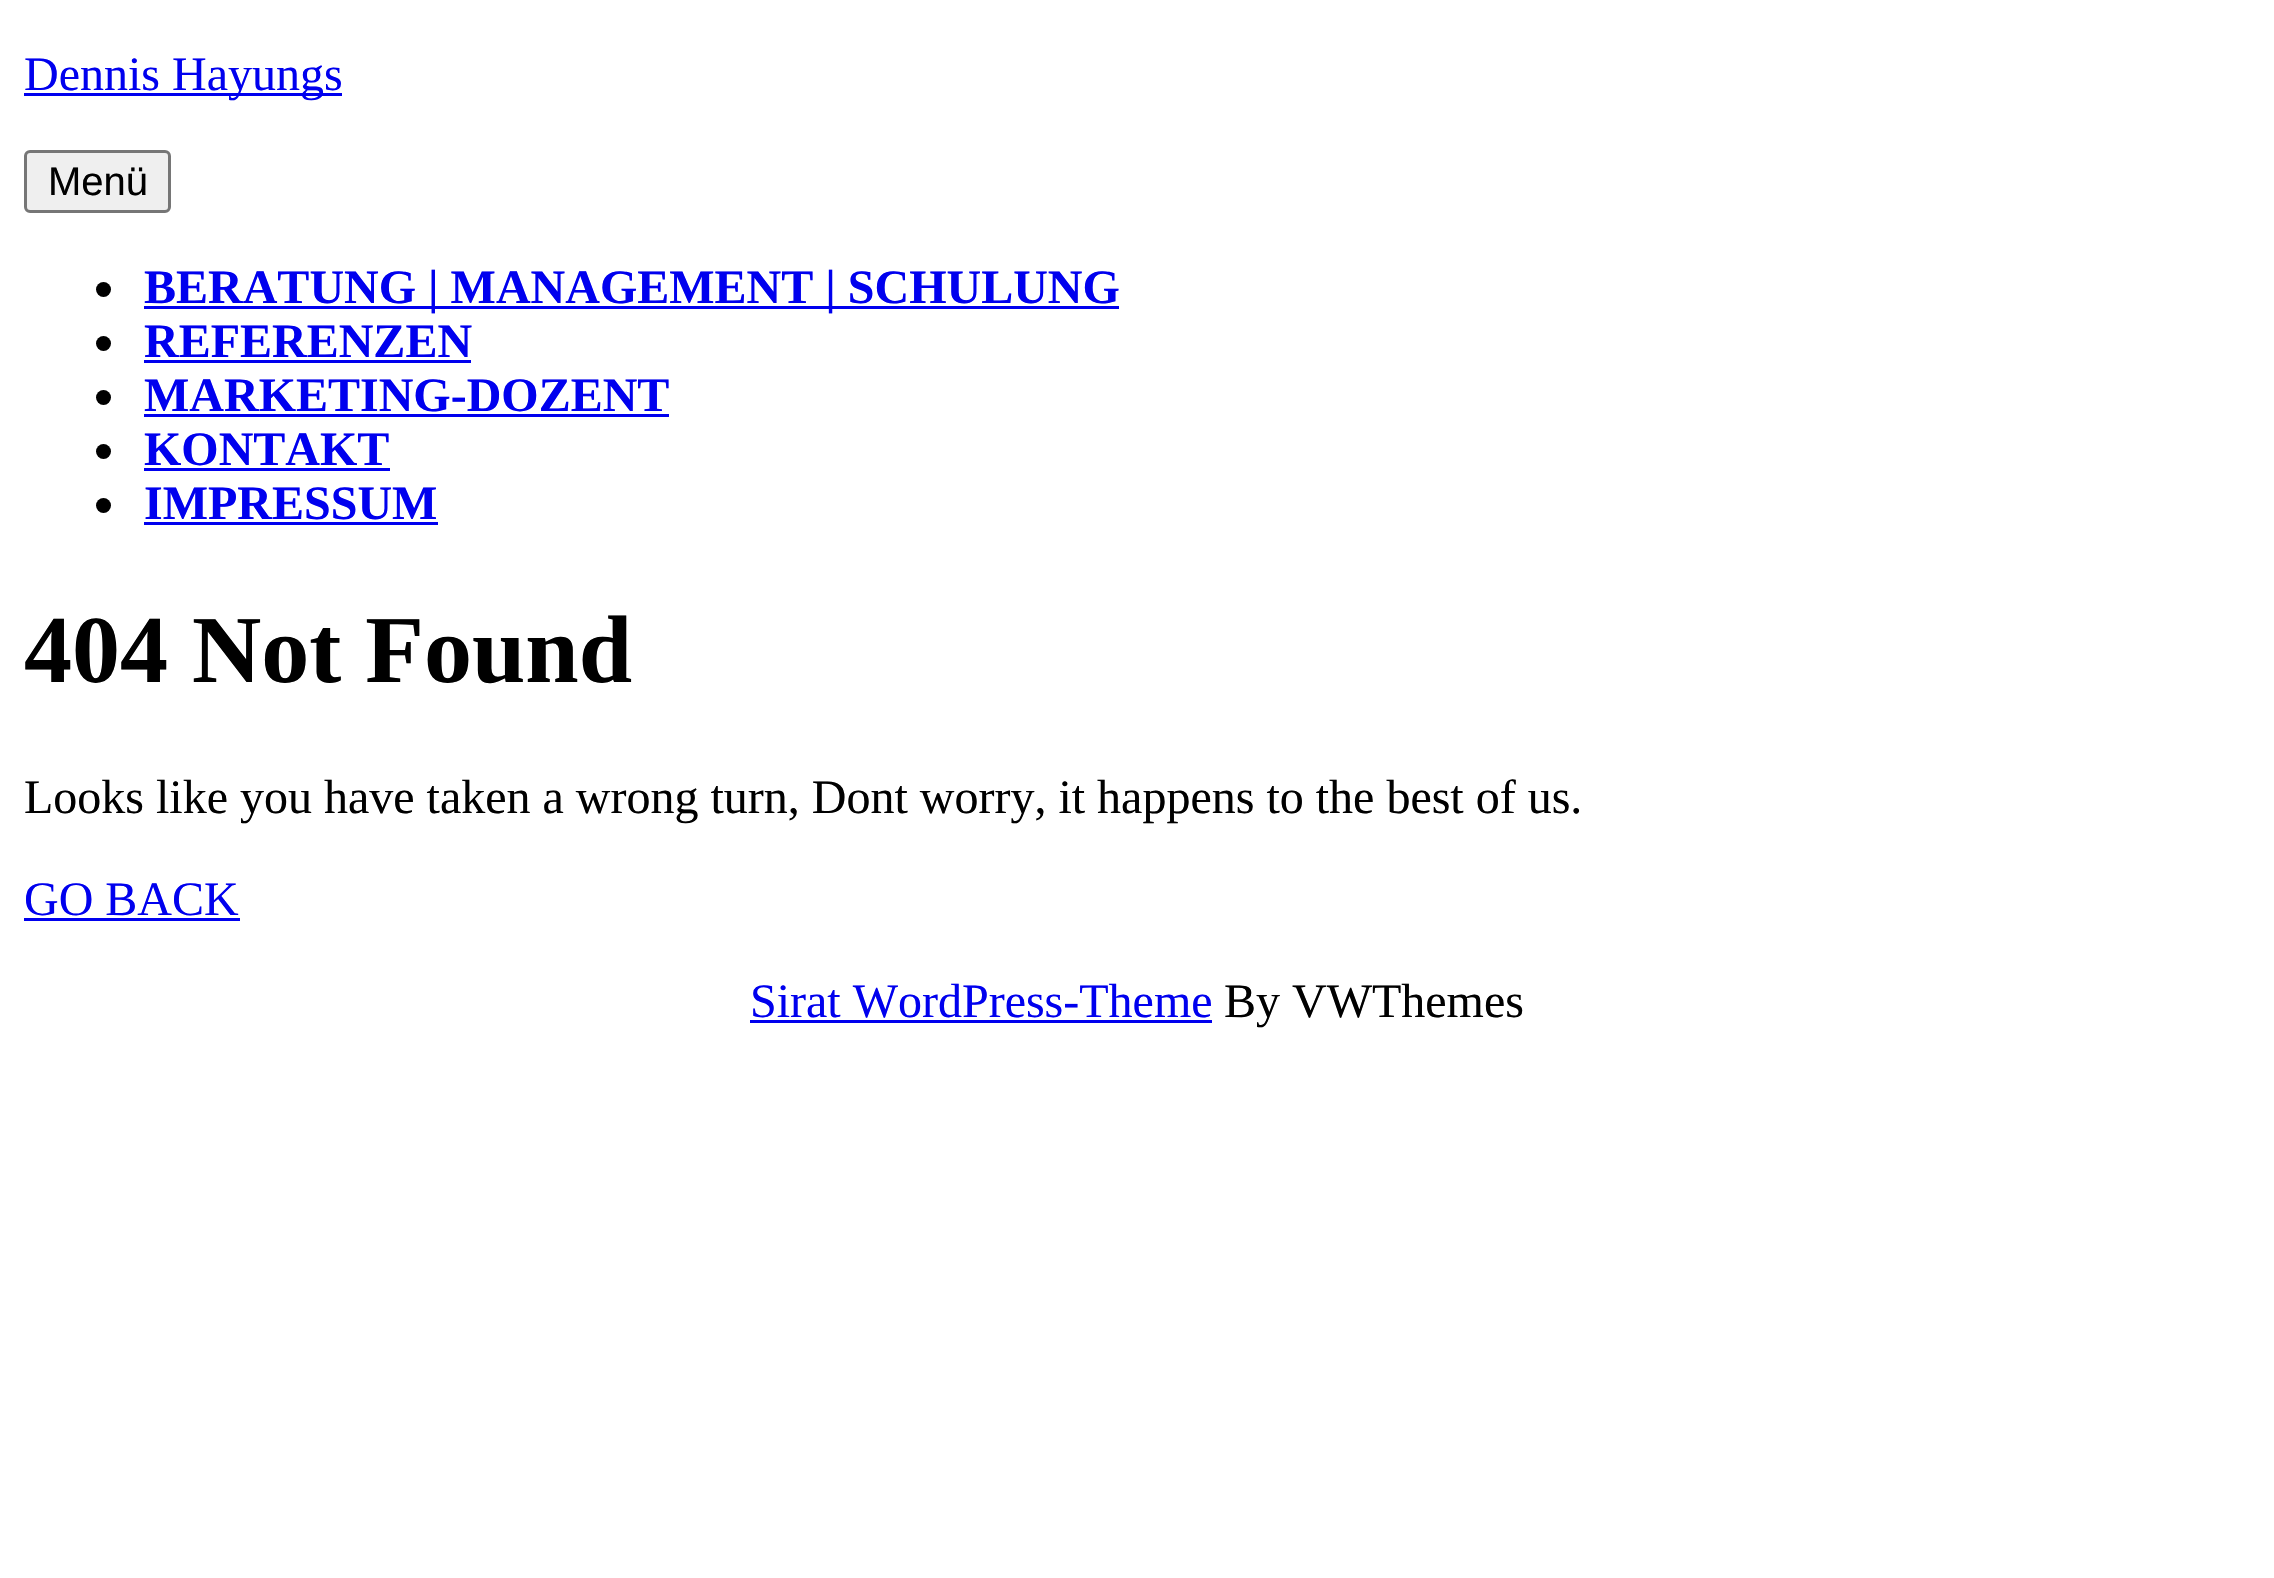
void draw(SkCanvas* c) {
SkPaint p;
p.setAntiAlias(true);
auto F=[&](const char* family, int weight, float size, bool italic = false){SkFontStyle style(weight, SkFontStyle::kNormal_Width,italic ? SkFontStyle::kItalic_Slant : SkFontStyle::kUpright_Slant);SkFont result(fontMgr->matchFamilyStyle(family, style), size);result.setSubpixel(true);return result;};
auto T=[&](const char* s, float x, float y, const SkFont& font){c->drawString(s, x, y, font, p);};
auto R=[&](float x, float y, float w, float h){c->drawRect(SkRect::MakeXYWH(x, y, w, h), p);};
c->clear(0xffffffff);
p.setColor(0xff0000ee);
R(24,93,318,3);
auto f1 = F("Liberation Serif",400,48);
T("Dennis Hayungs",24,90,f1);
p.setColor(0xffefefef);
c->drawRoundRect(SkRect::MakeXYWH(25.5,151.5,144,60),4.5,4.5,p);
p.setStroke(true);
p.setStrokeWidth(3);
p.setColor(0xff767676);
c->drawRoundRect(SkRect::MakeXYWH(25.5,151.5,144,60),4.5,4.5,p);
auto f2 = F("Liberation Sans",400,40);
p.setStroke(false);
p.setColor(0xff000000);
T("Menü",48,195,f2);
c->drawCircle(103.5,289.5,7.5,p);
p.setColor(0xff0000ee);
R(144,306,975,3);
auto f3 = F("Liberation Serif",700,48);
T("BERATUNG | MANAGEMENT | SCHULUNG",144,303,f3);
p.setColor(0xff000000);
c->drawCircle(103.5,343.5,7.5,p);
p.setColor(0xff0000ee);
T("REFERENZEN",144,357,f3);
R(144,360,327,3);
p.setColor(0xff000000);
c->drawCircle(103.5,397.5,7.5,p);
p.setColor(0xff0000ee);
T("MARKETING-DOZENT",144,411,f3);
R(144,414,525,3);
p.setColor(0xff000000);
c->drawCircle(103.5,451.5,7.5,p);
p.setColor(0xff0000ee);
T("KONTAKT",144,465,f3);
R(144,468,246,3);
p.setColor(0xff000000);
c->drawCircle(103.5,505.5,7.5,p);
p.setColor(0xff0000ee);
T("IMPRESSUM",144,519,f3);
R(144,522,294,3);
auto f4 = F("Liberation Serif",700,96);
p.setColor(0xff000000);
T("404 Not Found",24,682,f4);
T("Looks like you have taken a wrong turn, Dont worry, it happens to the best of us.",24,813,f1);
p.setColor(0xff0000ee);
T("GO BACK",24,915,f1);
R(24,918,216,3);
T("Sirat WordPress-Theme",750,1017,f1);
R(750,1020,462,3);
p.setColor(0xff000000);
T("By VWThemes",1224,1017,f1);
}
